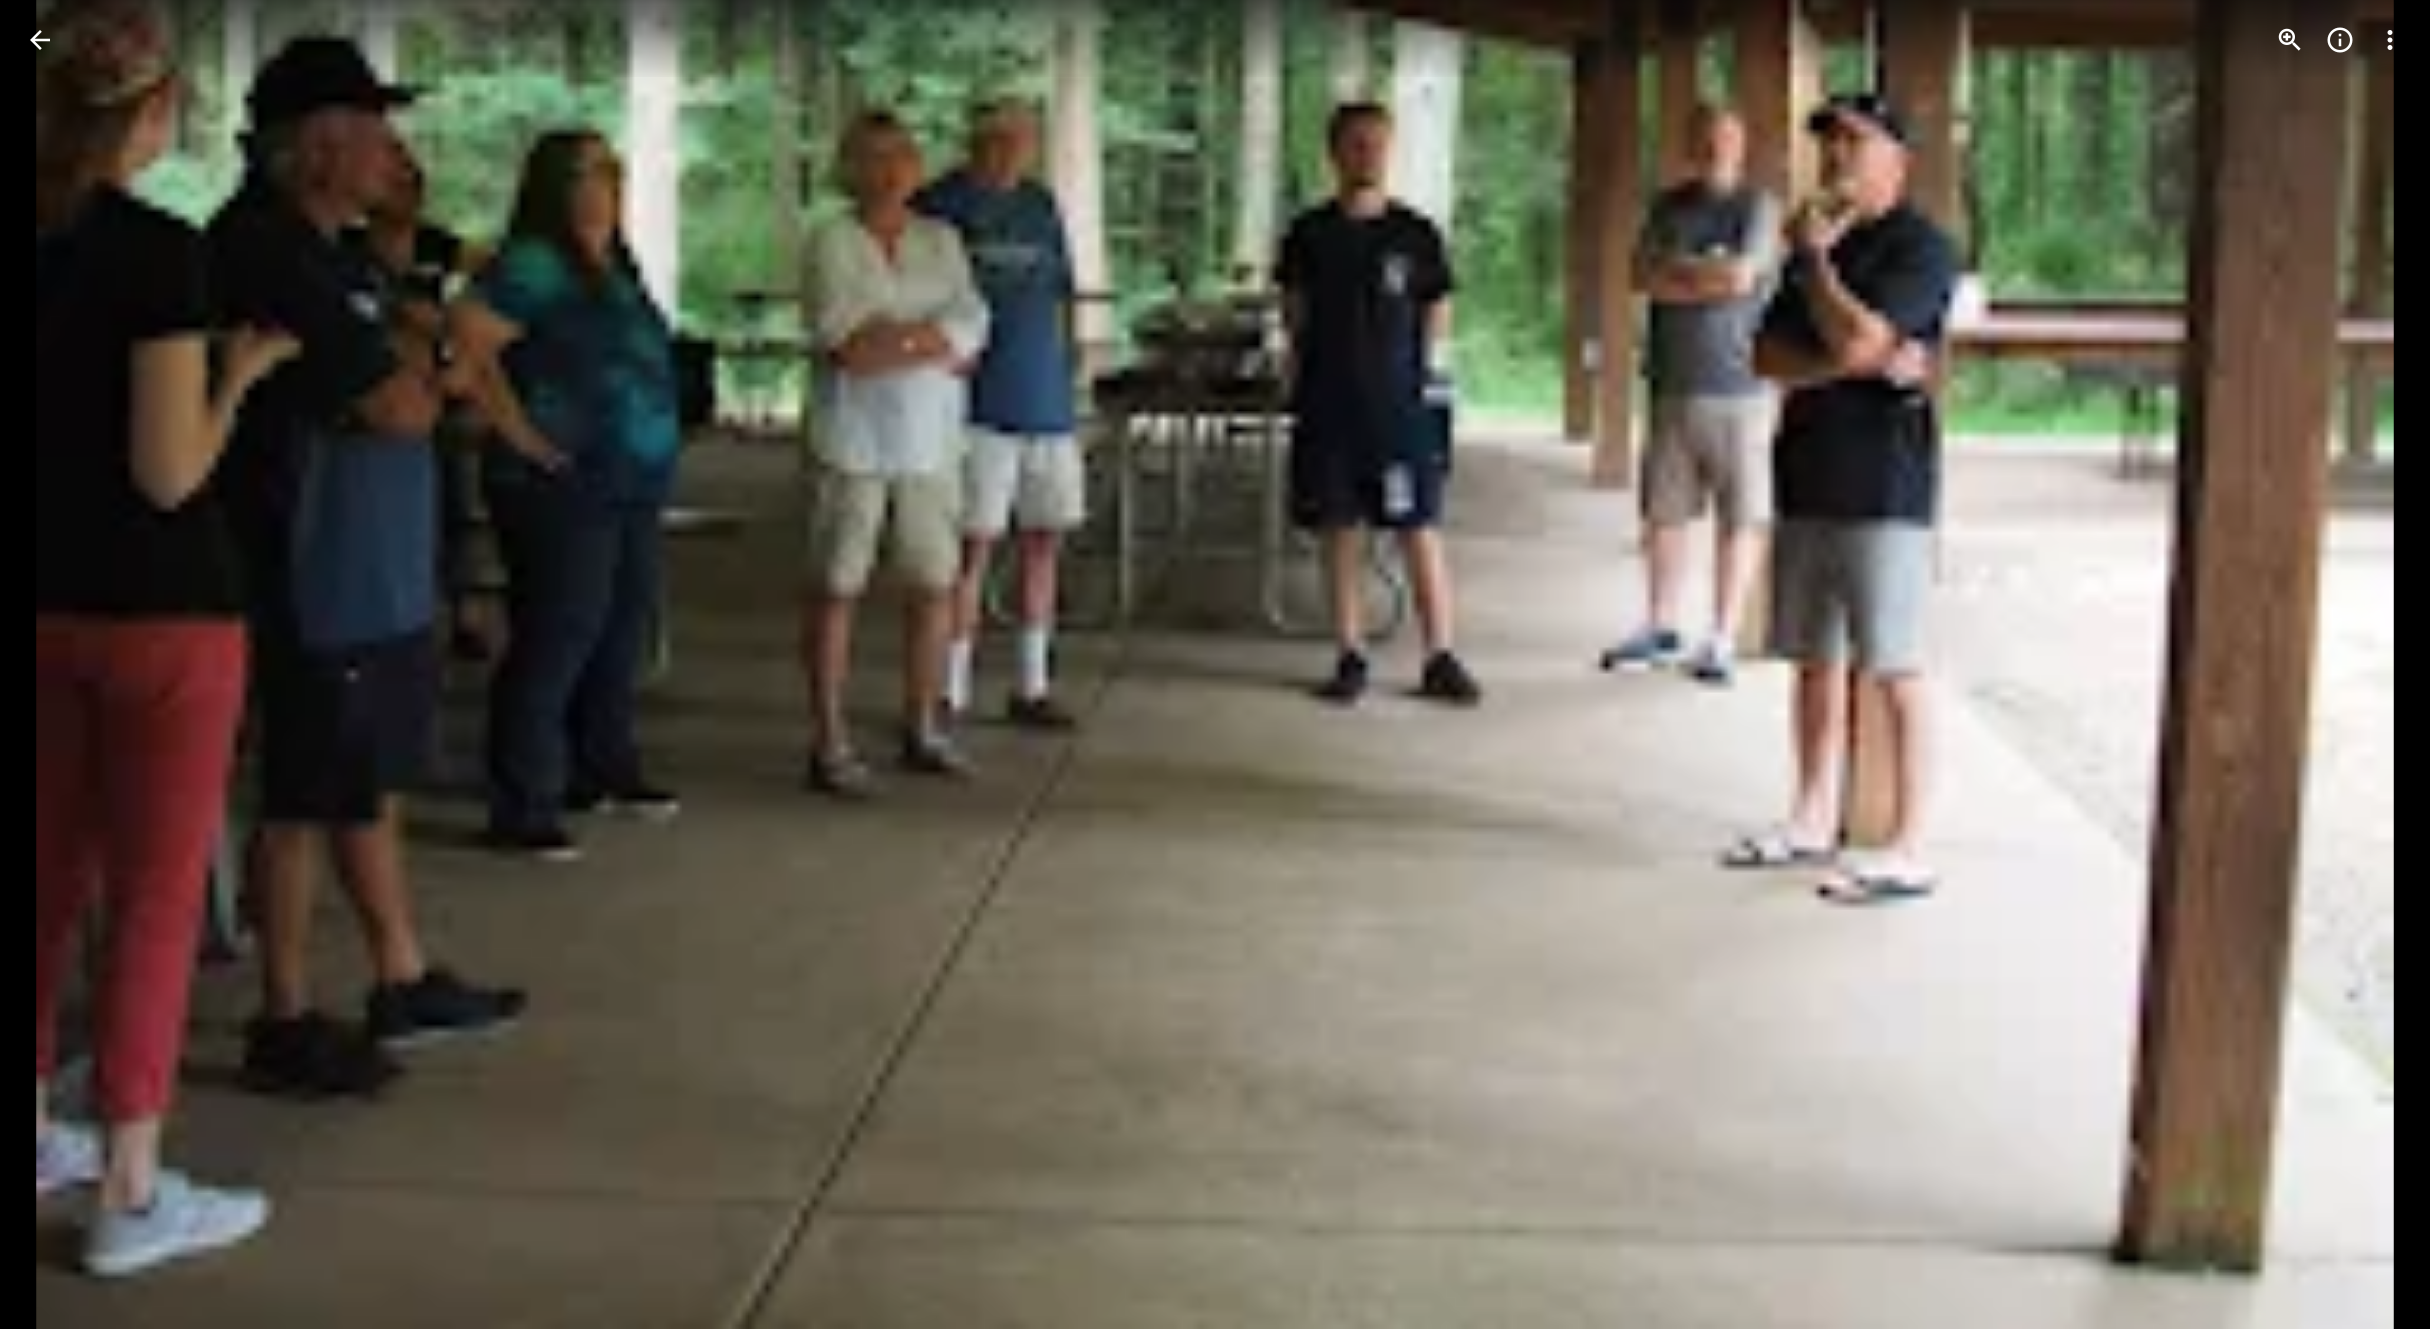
void draw(SkCanvas* c) {
SkPaint p;
p.setAntiAlias(true);
auto R=[&](float x, float y, float w, float h){c->drawRect(SkRect::MakeXYWH(x, y, w, h), p);};
auto I=[&](const char* path, float x, float y, float w, float h){auto image = SkImages::DeferredFromEncodedData(SkData::MakeFromFileName(path));c->drawImageRect(image, SkRect::MakeXYWH(x, y, w, h), SkSamplingOptions());};
c->clear(0xff000000);
I("5.png",36,0,2358,1329);
{
const SkColor colors[] = {0x99000000,0x00000000};
const float stops[] = {0,1};
const SkPoint ends[] = {{1215,0}, {1215,80}};
p.setShader(SkGradientShader::MakeLinear(ends, colors, stops, 2, SkTileMode::kClamp));
p.setAlpha(255);
}
R(36,0,2358,77);
I("1.png",30,30,20,20);
I("2.png",2278,28,23,23);
I("3.png",2327,27,26,26);
I("4.png",2387,30,6,20);
}
